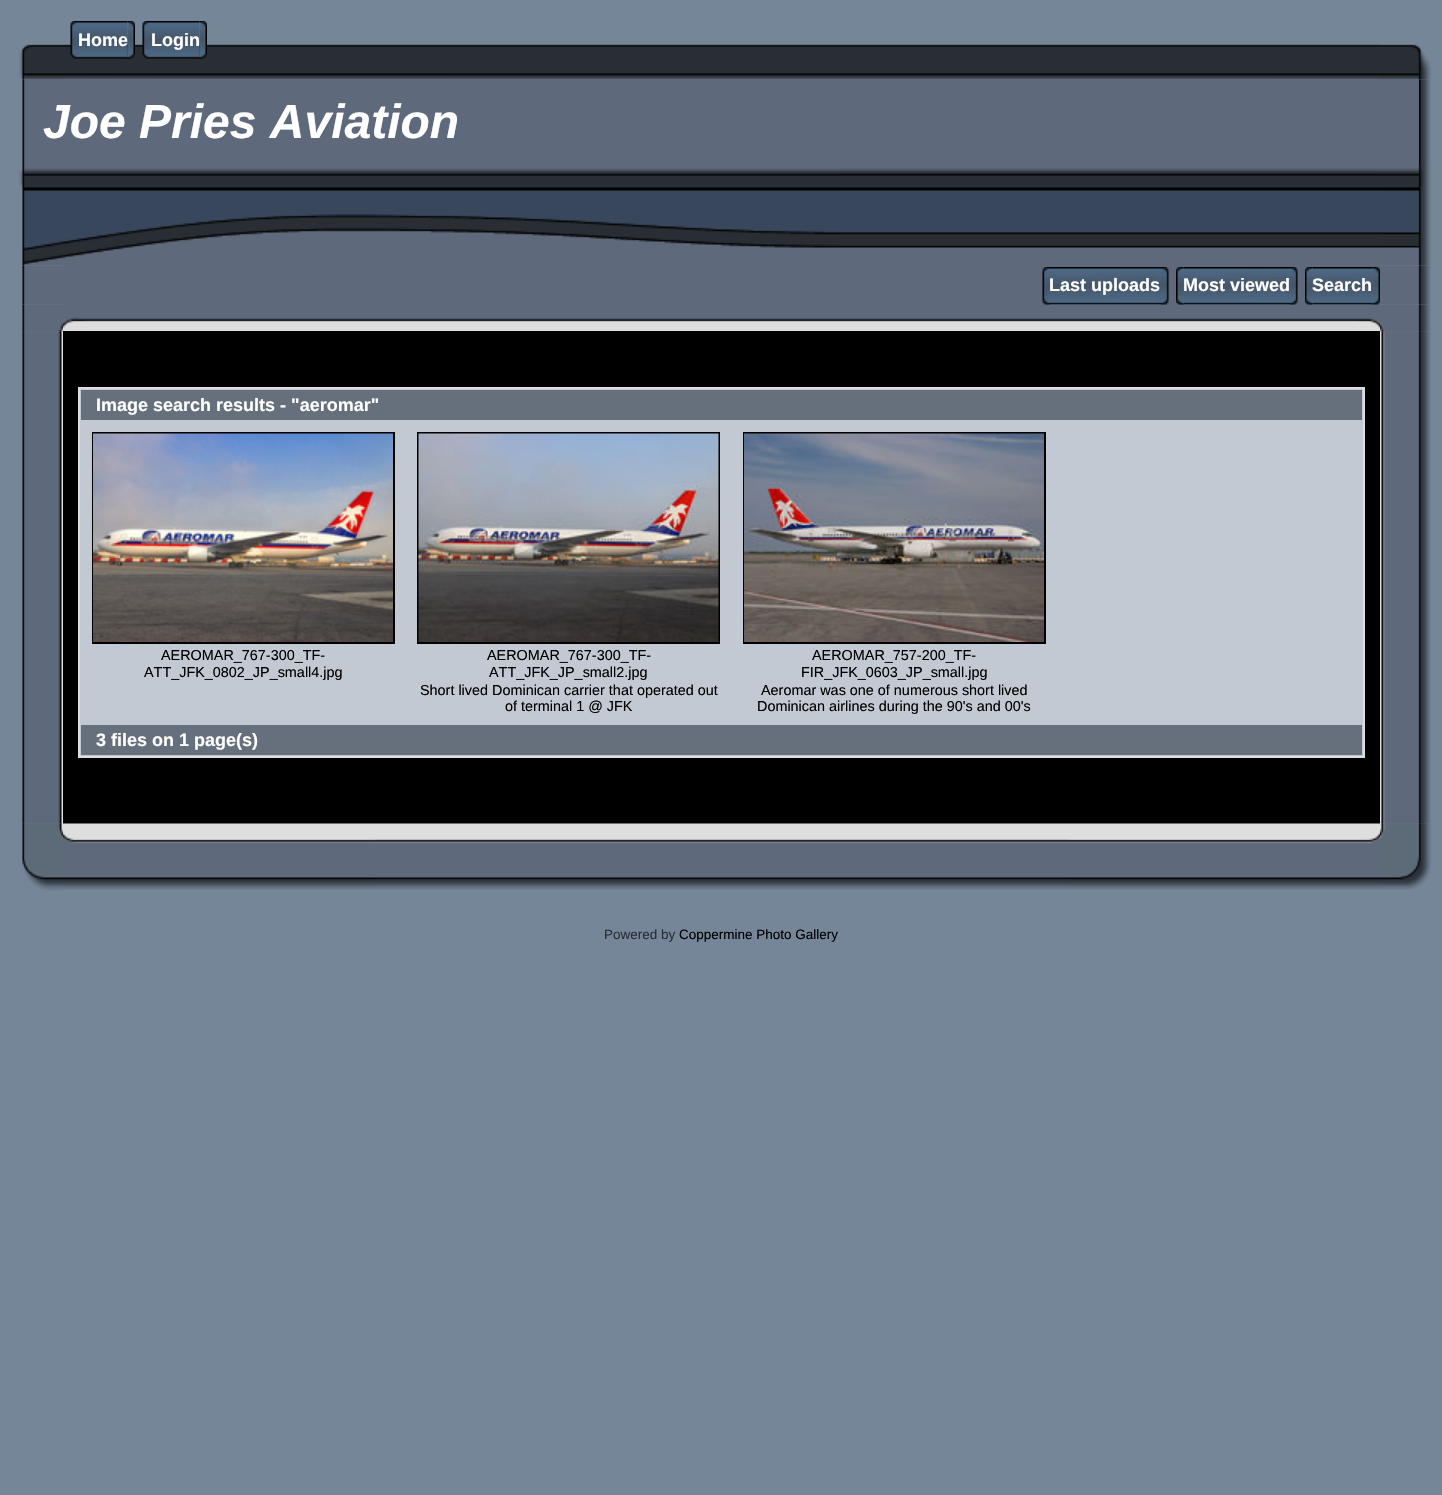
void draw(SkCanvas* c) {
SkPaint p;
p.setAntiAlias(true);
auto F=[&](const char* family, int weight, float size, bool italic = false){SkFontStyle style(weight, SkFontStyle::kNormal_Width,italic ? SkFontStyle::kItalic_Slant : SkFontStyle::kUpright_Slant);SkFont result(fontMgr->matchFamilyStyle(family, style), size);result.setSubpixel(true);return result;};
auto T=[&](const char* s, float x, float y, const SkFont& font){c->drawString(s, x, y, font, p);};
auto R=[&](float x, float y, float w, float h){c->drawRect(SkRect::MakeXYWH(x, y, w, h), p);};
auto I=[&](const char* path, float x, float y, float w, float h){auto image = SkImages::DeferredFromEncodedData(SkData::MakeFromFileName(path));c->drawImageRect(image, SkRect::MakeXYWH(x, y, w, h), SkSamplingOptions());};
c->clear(0xff758698);
I("1.png",63,44,1317,35);
I("2.png",70,21,8,38);
I("3.png",78,21,50,38);
auto f1 = F("Liberation Sans",700,18);
p.setColor(0xffffffff);
T("Home",78,46,f1);
I("4.png",127,21,8,38);
I("2.png",142,21,8,38);
I("5.png",150,21,50,38);
T("Login",151,46,f1);
I("6.png",199,21,8,38);
I("7.png",19,44,44,36);
I("8.png",1380,44,51,36);
I("9.png",22,79,5,86);
p.setColor(0xff5e697b);
R(27,79,1392,86);
auto f2 = F("Liberation Sans",700,48,true);
p.setColor(0xffffffff);
T("Joe Pries Aviation",43,138,f2);
I("10.png",1419,79,12,86);
I("11.png",19,165,821,101);
I("12.png",840,165,540,100);
I("13.png",1380,165,51,101);
I("14.png",22,265,41,40);
p.setColor(0xff5e697b);
R(63,265,1317,40);
I("16.png",1050,267,111,38);
I("19.png",1183,267,107,38);
I("21.png",1312,267,61,38);
I("26.png",84,304,1275,27);
I("15.png",1042,267,8,38);
p.setColor(0xffffffff);
T("Last uploads",1049,291,f1);
I("17.png",1161,267,8,38);
I("18.png",1176,267,8,38);
T("Most viewed",1183,291,f1);
I("17.png",1290,267,8,38);
I("20.png",1305,267,8,38);
T("Search",1312,291,f1);
I("27.png",1359,304,21,27);
I("22.png",1372,267,8,38);
I("23.png",1380,265,51,40);
I("24.png",22,304,41,28);
I("25.png",63,305,21,26);
I("28.png",1380,304,51,28);
I("29.png",22,331,41,493);
I("36.png",22,823,41,68);
I("30.png",22,331,41,493);
p.setColor(0xff000000);
R(63,331,1317,493);
p.setColor(0xffc2c9d3);
c->drawRect(SkRect::MakeXYWH(79,388,1285,369),p);
p.setStroke(true);
p.setStrokeWidth(2);
p.setColor(0xffdedede);
c->drawRect(SkRect::MakeXYWH(79,388,1285,369),p);
p.setStroke(false);
p.setColor(0xff66707c);
R(81,390,1281,30);
p.setColor(0xffffffff);
T("Image search results - \"aeromar\"",96,411,f1);
p.setStroke(true);
p.setColor(0xff000000);
c->drawRect(SkRect::MakeXYWH(93,433,301,210),p);
I("31.png",93,433,300,209);
auto f3 = F("Liberation Sans",400,14.4);
p.setStroke(false);
T("AEROMAR_767-300_TF-",161,660,f3);
T("ATT_JFK_0802_JP_small4.jpg",144,677,f3);
p.setStroke(true);
c->drawRect(SkRect::MakeXYWH(418,433,301,210),p);
I("32.png",418,433,301,209);
p.setStroke(false);
T("AEROMAR_767-300_TF-",487,660,f3);
T("ATT_JFK_JP_small2.jpg",489,677,f3);
T("Short lived Dominican carrier that operated out",420,695,f3);
T("of terminal 1 @ JFK",505,711,f3);
p.setStroke(true);
c->drawRect(SkRect::MakeXYWH(744,433,301,210),p);
I("33.png",744,433,300,209);
p.setStroke(false);
T("AEROMAR_757-200_TF-",812,660,f3);
T("FIR_JFK_0603_JP_small.jpg",801,677,f3);
T("Aeromar was one of numerous short lived",761,695,f3);
T("Dominican airlines during the 90's and 00's",757,711,f3);
p.setColor(0xff66707c);
R(81,725,1281,30);
p.setColor(0xffffffff);
T("3 files on 1 page(s)",96,746,f1);
I("34.png",1380,331,51,493);
I("40.png",1380,823,51,67);
I("35.png",1380,331,48,493);
I("37.png",63,823,312,67);
I("38.png",375,823,693,67);
I("39.png",1068,823,312,67);
auto f4 = F("Liberation Sans",400,13.5);
p.setColor(0xff292e34);
T("Powered by",604,939,f4);
p.setColor(0xff000000);
T("Coppermine Photo Gallery",679,939,f4);
}
